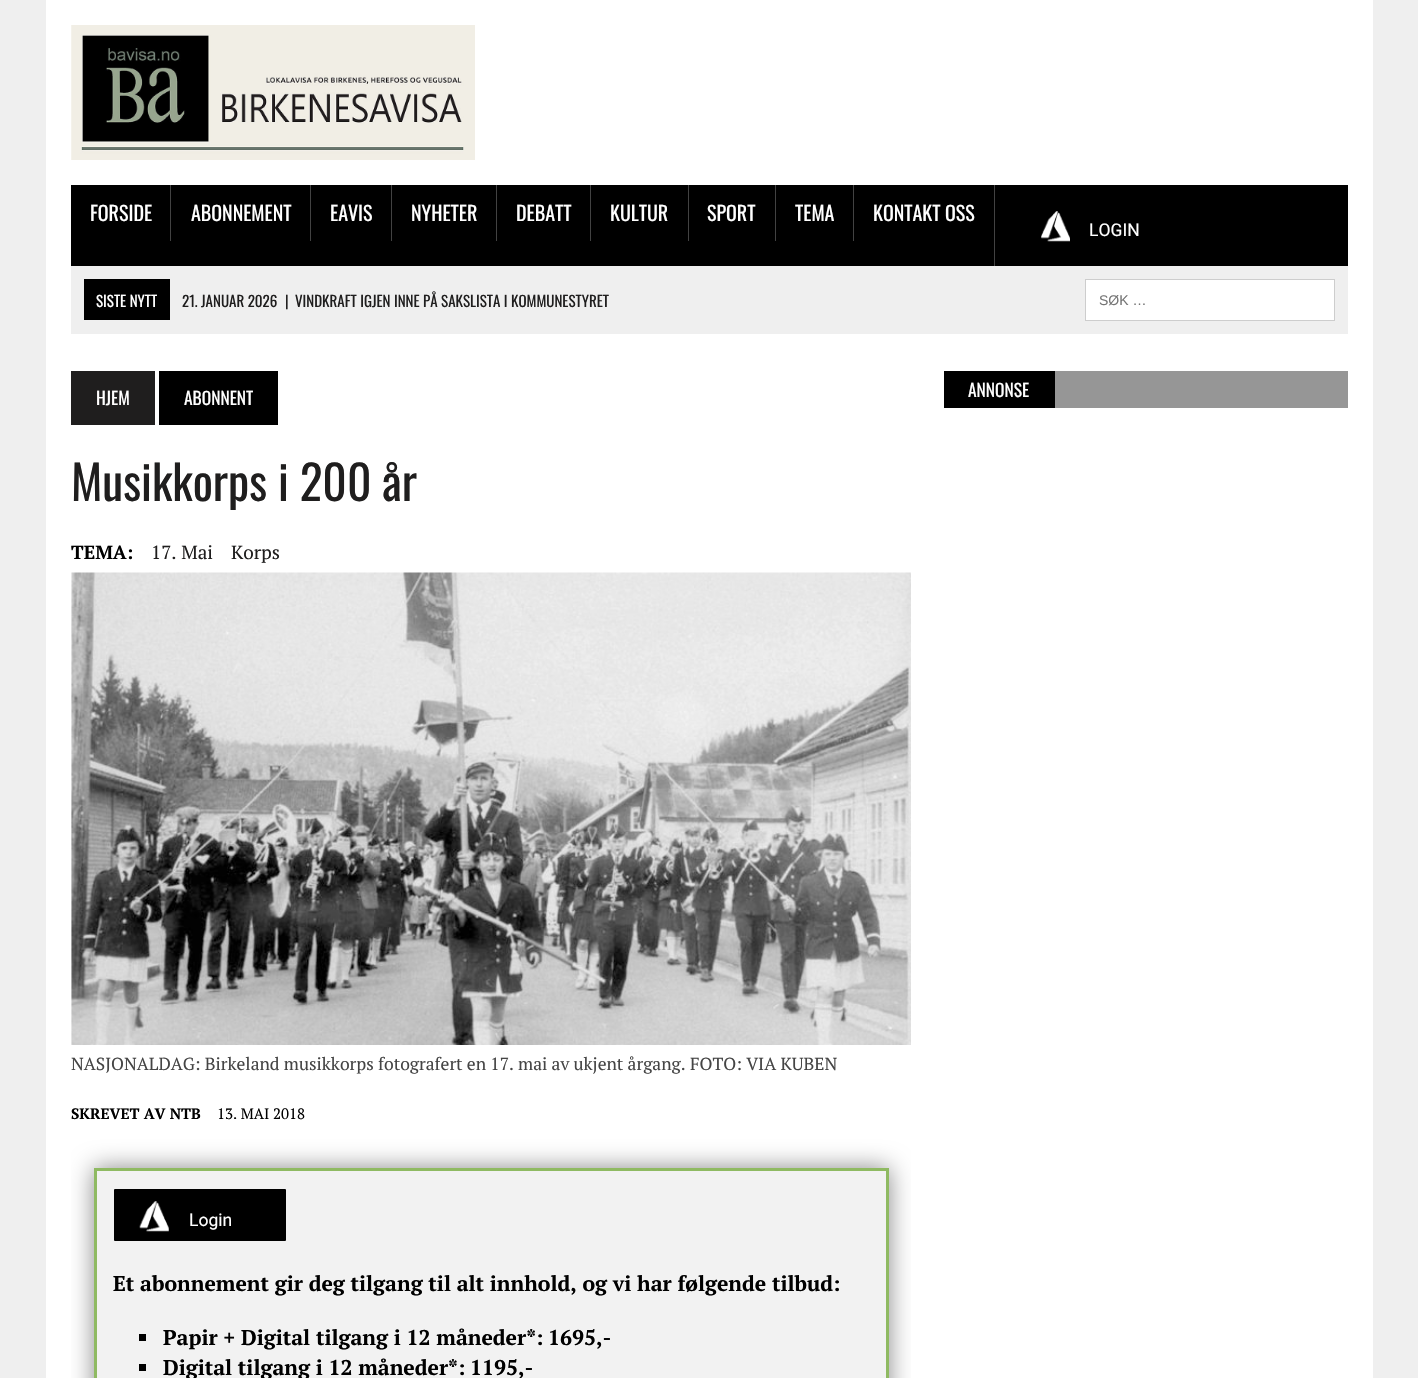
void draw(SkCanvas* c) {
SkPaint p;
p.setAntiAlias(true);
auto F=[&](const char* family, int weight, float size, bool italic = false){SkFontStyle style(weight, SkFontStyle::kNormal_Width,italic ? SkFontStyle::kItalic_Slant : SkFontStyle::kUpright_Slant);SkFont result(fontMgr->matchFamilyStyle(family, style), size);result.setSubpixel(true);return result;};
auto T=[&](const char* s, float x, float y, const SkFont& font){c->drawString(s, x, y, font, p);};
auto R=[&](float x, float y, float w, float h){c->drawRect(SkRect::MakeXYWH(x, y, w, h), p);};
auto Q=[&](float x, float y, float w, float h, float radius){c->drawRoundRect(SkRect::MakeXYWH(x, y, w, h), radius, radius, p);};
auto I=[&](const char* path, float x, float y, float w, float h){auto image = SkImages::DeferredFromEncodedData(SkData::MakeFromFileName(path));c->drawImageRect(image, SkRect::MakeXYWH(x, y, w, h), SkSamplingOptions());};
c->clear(0xffefefef);
p.setColor(0xffffffff);
R(46,0,1327,1378);
I("1.png",71,25,404,135);
p.setColor(0xff000000);
R(71,185,1277,81);
auto f1 = F("Oswald",400,20);
p.setColor(0xffffffff);
T("FORSIDE",90,221,f1);
p.setColor(0xff424242);
R(170,185,1,56);
p.setColor(0xffffffff);
T("ABONNEMENT",191,221,f1);
p.setColor(0xff424242);
R(310,185,1,56);
p.setColor(0xffffffff);
T("EAVIS",330,221,f1);
p.setColor(0xff424242);
R(391,185,1,56);
p.setColor(0xffffffff);
T("NYHETER",411,221,f1);
p.setColor(0xff424242);
R(496,185,1,56);
p.setColor(0xffffffff);
T("DEBATT",516,221,f1);
p.setColor(0xff424242);
R(590,185,1,56);
p.setColor(0xffffffff);
T("KULTUR",610,221,f1);
p.setColor(0xff424242);
R(688,185,1,56);
p.setColor(0xffffffff);
T("SPORT",707,221,f1);
p.setColor(0xff424242);
R(775,185,1,56);
p.setColor(0xffffffff);
T("TEMA",795,221,f1);
p.setColor(0xff424242);
R(853,185,1,56);
p.setColor(0xffffffff);
T("KONTAKT OSS",873,221,f1);
p.setColor(0xff424242);
R(994,185,1,81);
I("2.png",1041,211,29,31);
auto f2 = F("Roboto",400,17.5);
p.setColor(0xffffffff);
T("LOGIN",1089,236,f2);
p.setColor(0xffefefef);
R(71,266,1277,68);
p.setColor(0xff000000);
R(84,279,86,41);
auto f3 = F("Oswald",400,15);
p.setColor(0xffffffff);
T("SISTE NYTT",96,307,f3);
p.setColor(0xff1f1e1e);
T("21. JANUAR 2026",182,307,f3);
T("|",285,307,f3);
T("VINDKRAFT IGJEN INNE PÅ SAKSLISTA I KOMMUNESTYRET",295,307,f3);
p.setColor(0xffffffff);
c->drawRect(SkRect::MakeXYWH(1085.5,279.5,249,41),p);
p.setStroke(true);
p.setStrokeWidth(1);
p.setColor(0xffcdcdcd);
c->drawRect(SkRect::MakeXYWH(1085.5,279.5,249,41),p);
auto f4 = F("Liberation Sans",400,14);
p.setStroke(false);
p.setColor(0xff757575);
T("SØK …",1099,305,f4);
p.setColor(0xff1f1e1e);
R(71,371,84,54);
auto f5 = F("Oswald",400,17.5);
p.setColor(0xffffffff);
T("HJEM",96,405,f5);
p.setColor(0xff000000);
R(159,371,119,54);
p.setColor(0xffffffff);
T("ABONNENT",184,405,f5);
auto f6 = F("Oswald",400,47.5);
p.setColor(0xff1f1e1e);
T("Musikkorps i 200 år",71,501,f6);
auto f7 = F("PT Serif",700,19);
p.setColor(0xff000000);
T("TEMA:",71,559,f7);
auto f8 = F("PT Serif",400,19);
p.setColor(0xff1f1e1e);
T("17. Mai",151,559,f8);
T("Korps",231,559,f8);
I("3.png",71,572,840,473);
auto f9 = F("PT Serif",400,17.5);
p.setColor(0xff454545);
T("NASJONALDAG: Birkeland musikkorps fotografert en 17. mai av ukjent årgang. FOTO: VIA KUBEN",71,1070,f9);
auto f10 = F("PT Serif",700,15);
p.setColor(0xff000000);
T("SKREVET AV NTB",71,1119,f10);
auto f11 = F("PT Serif",400,15);
T("13. MAI 2018",217,1119,f11);
c->save();
c->clipRect(SkRect::MakeXYWH(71,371,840,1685));
p.setColor(0xff888888);
p.setMaskFilter(SkMaskFilter::MakeBlur(kNormal_SkBlurStyle, 12.5));
c->drawRoundRect(SkRect::MakeXYWH(94,1168,795,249),1,1,p);
p.setMaskFilter(nullptr);
c->restore();
p.setColor(0xfff2f2f2);
c->drawRect(SkRect::MakeXYWH(95.5,1169.5,792,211),p);
p.setStroke(true);
p.setStrokeWidth(3);
p.setColor(0xff8fba62);
c->drawRect(SkRect::MakeXYWH(95.5,1169.5,792,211),p);
p.setStroke(false);
p.setColor(0xff000000);
Q(114,1189,172,52,1);
I("4.png",139,1201,30,31);
p.setColor(0xffffffff);
T("Login",189,1226,f2);
auto f12 = F("PT Serif",700,21.25);
p.setColor(0xff000000);
T("Et abonnement gir deg tilgang til alt innhold, og vi har følgende tilbud:",113,1291,f12);
R(139,1334,7,7);
T("Papir + Digital tilgang i 12 måneder*:",163,1345,f12);
T("1695,-",548,1345,f12);
R(139,1364,7,7);
T("Digital tilgang i 12 måneder*:",163,1375,f12);
T("1195,-",470,1375,f12);
p.setColor(0xff969696);
R(1055,371,293,37);
p.setColor(0xff000000);
R(944,371,111,37);
p.setColor(0xffffffff);
T("ANNONSE",968,397,f5);
}
